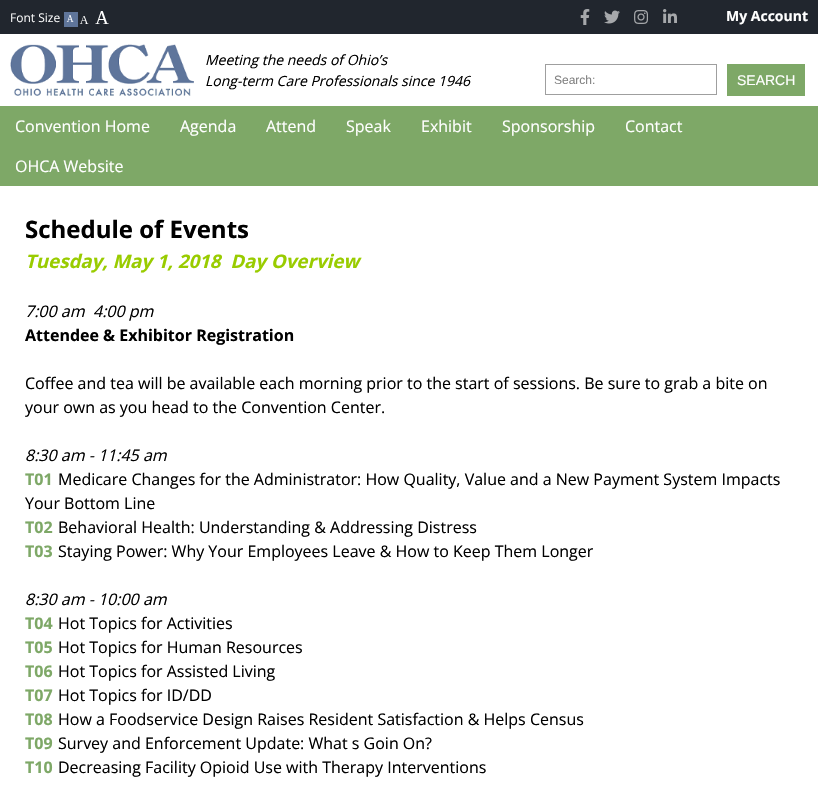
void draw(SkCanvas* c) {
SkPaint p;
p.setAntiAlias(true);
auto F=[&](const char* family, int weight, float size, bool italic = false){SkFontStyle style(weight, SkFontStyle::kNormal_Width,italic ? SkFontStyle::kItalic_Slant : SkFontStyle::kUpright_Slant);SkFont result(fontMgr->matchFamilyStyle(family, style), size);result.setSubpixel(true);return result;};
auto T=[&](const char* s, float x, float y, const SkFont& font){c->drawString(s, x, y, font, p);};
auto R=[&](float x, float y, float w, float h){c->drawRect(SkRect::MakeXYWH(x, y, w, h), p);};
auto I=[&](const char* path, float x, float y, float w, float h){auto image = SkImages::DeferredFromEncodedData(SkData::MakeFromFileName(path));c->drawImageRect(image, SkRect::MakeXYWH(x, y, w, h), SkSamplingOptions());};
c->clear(0xff21262e);
I("1.png",11,11,98,16);
I("2.png",580,9,10,16);
I("3.png",604,10,16,14);
I("4.png",634,10,14,14);
I("5.png",663,9,14,14);
auto f1 = F("Open Sans",700,14);
p.setColor(0xffffffff);
T("My Account",726,21,f1);
R(0,34,818,72);
I("6.png",10,44,184,52);
auto f2 = F("Open Sans",400,14,true);
p.setColor(0xff000000);
T("Meeting the needs of Ohio’s",205,65,f2);
T("Long-term Care Professionals since 1946",205,86,f2);
p.setStroke(true);
p.setStrokeWidth(1);
p.setColor(0xff9f9f9f);
c->drawRect(SkRect::MakeXYWH(545.5,64.5,171,30),p);
auto f3 = F("Liberation Sans",400,12);
p.setStroke(false);
p.setColor(0xff818181);
T("Search:",554,84,f3);
p.setColor(0xff7ea867);
R(727,64,78,32);
auto f4 = F("Liberation Sans",400,14);
p.setColor(0xffffffff);
T("SEARCH",737,85,f4);
p.setColor(0xff7ea867);
R(0,106,818,80);
auto f5 = F("Open Sans",400,16);
p.setColor(0xffffffff);
T("Convention Home",15,132,f5);
T("Agenda",180,132,f5);
T("Attend",266,132,f5);
T("Speak",346,132,f5);
T("Exhibit",421,132,f5);
T("Sponsorship",502,132,f5);
T("Contact",625,132,f5);
T("OHCA Website",15,172,f5);
R(0,186,818,603);
auto f6 = F("Open Sans",700,24);
p.setColor(0xff000000);
T("Schedule of Events",25,238,f6);
auto f7 = F("Open Sans",700,18.7,true);
p.setColor(0xff99cc00);
T("Tuesday, May 1, 2018  Day Overview",25,268,f7);
auto f8 = F("Open Sans",400,16,true);
p.setColor(0xff000000);
T("7:00 am",25,317,f8);
T("4:00 pm",93,317,f8);
auto f9 = F("Open Sans",700,16);
T("Attendee & Exhibitor Registration",25,341,f9);
T("Coffee and tea will be available each morning prior to the start of sessions. Be sure to grab a bite on",25,389,f5);
T("your own as you head to the Convention Center.",25,413,f5);
T("8:30 am - 11:45 am",25,461,f8);
p.setColor(0xff7ea867);
T("T01",25,485,f9);
p.setColor(0xff000000);
T("Medicare Changes for the Administrator: How Quality, Value and a New Payment System Impacts",58,485,f5);
T("Your Bottom Line",25,509,f5);
p.setColor(0xff7ea867);
T("T02",25,533,f9);
p.setColor(0xff000000);
T("Behavioral Health: Understanding & Addressing Distress",58,533,f5);
p.setColor(0xff7ea867);
T("T03",25,557,f9);
p.setColor(0xff000000);
T("Staying Power: Why Your Employees Leave & How to Keep Them Longer",58,557,f5);
T("8:30 am - 10:00 am",25,605,f8);
p.setColor(0xff7ea867);
T("T04",25,629,f9);
p.setColor(0xff000000);
T("Hot Topics for Activities",58,629,f5);
p.setColor(0xff7ea867);
T("T05",25,653,f9);
p.setColor(0xff000000);
T("Hot Topics for Human Resources",58,653,f5);
p.setColor(0xff7ea867);
T("T06",25,677,f9);
p.setColor(0xff000000);
T("Hot Topics for Assisted Living",58,677,f5);
p.setColor(0xff7ea867);
T("T07",25,701,f9);
p.setColor(0xff000000);
T("Hot Topics for ID/DD",58,701,f5);
p.setColor(0xff7ea867);
T("T08",25,725,f9);
p.setColor(0xff000000);
T("How a Foodservice Design Raises Resident Satisfaction & Helps Census",58,725,f5);
p.setColor(0xff7ea867);
T("T09",25,749,f9);
p.setColor(0xff000000);
T("Survey and Enforcement Update: What s Goin On?",58,749,f5);
p.setColor(0xff7ea867);
T("T10",25,773,f9);
p.setColor(0xff000000);
T("Decreasing Facility Opioid Use with Therapy Interventions",58,773,f5);
}
